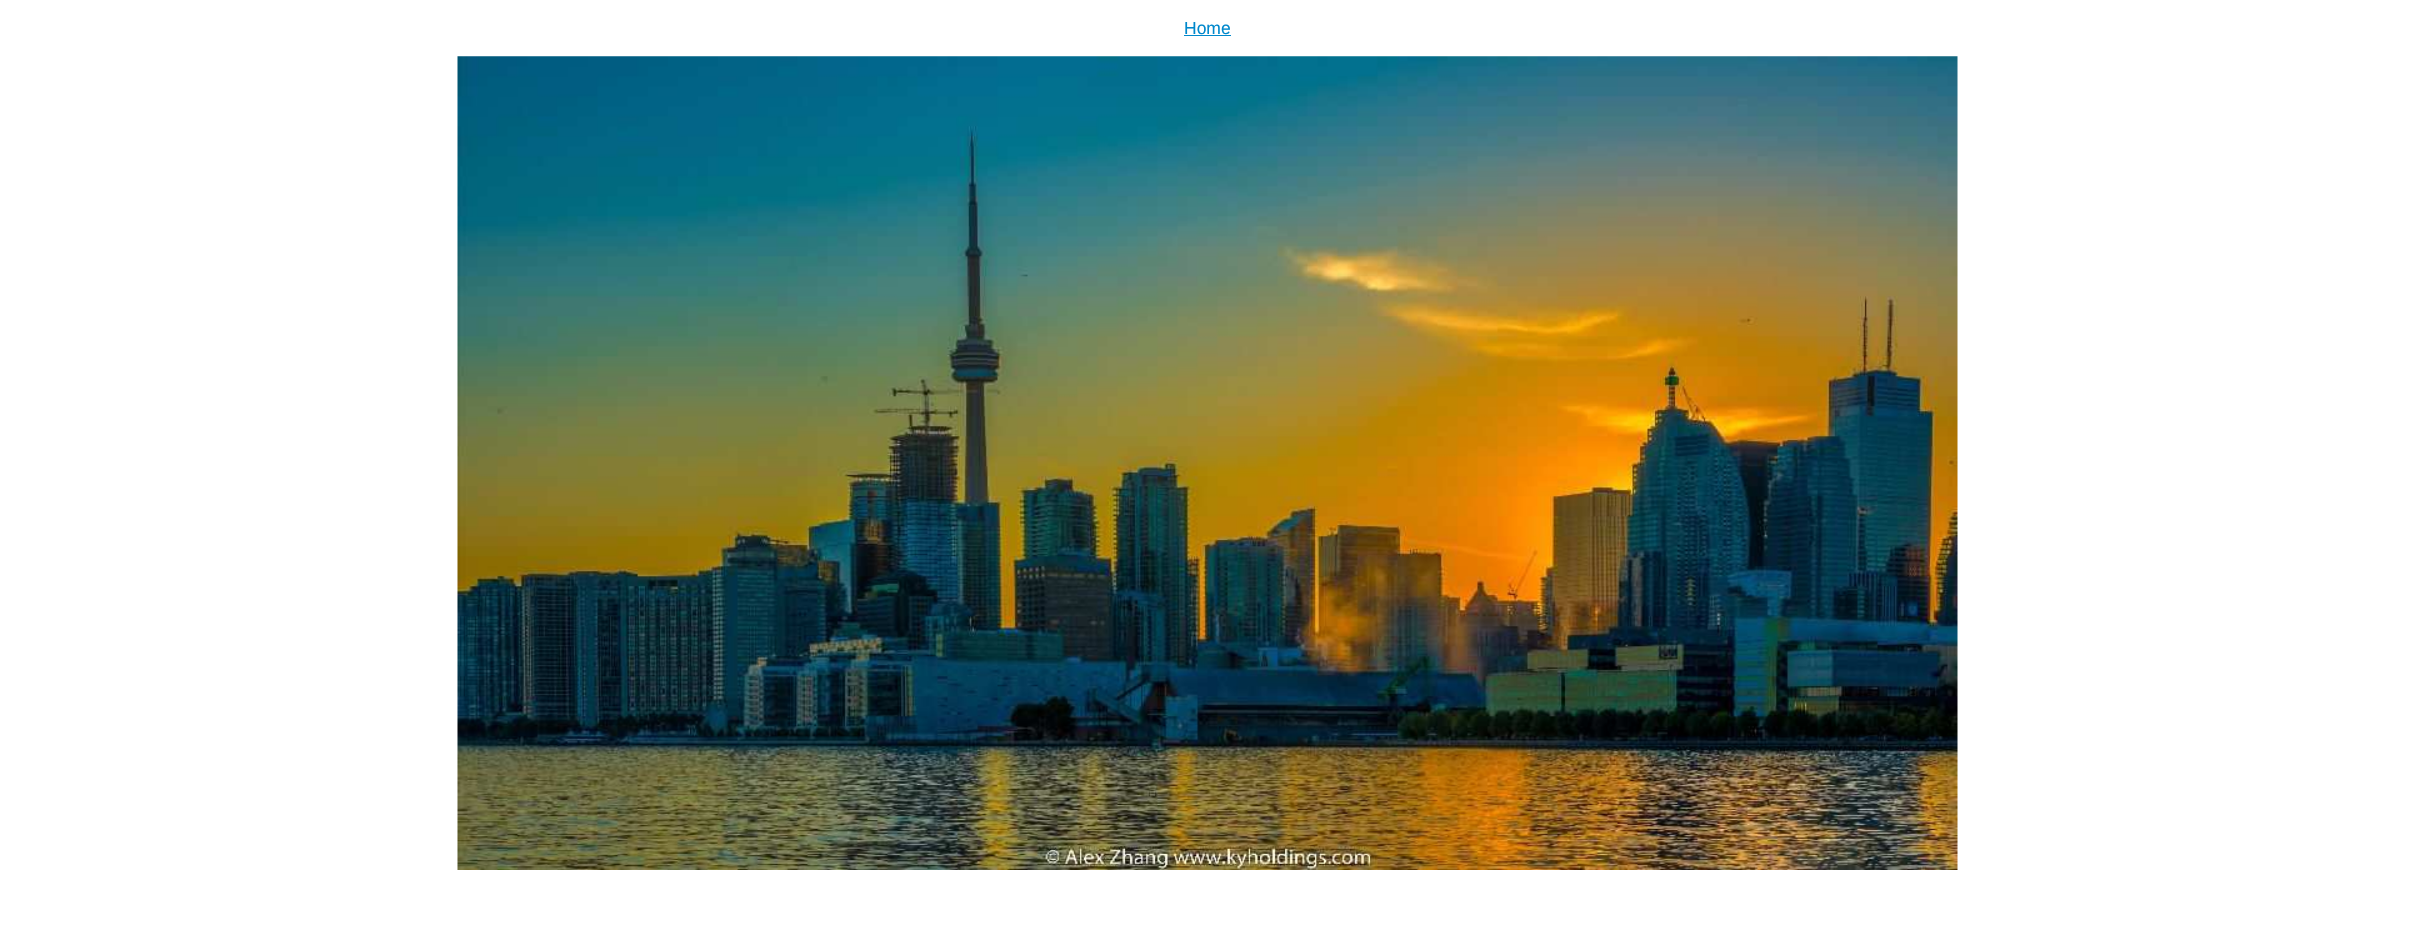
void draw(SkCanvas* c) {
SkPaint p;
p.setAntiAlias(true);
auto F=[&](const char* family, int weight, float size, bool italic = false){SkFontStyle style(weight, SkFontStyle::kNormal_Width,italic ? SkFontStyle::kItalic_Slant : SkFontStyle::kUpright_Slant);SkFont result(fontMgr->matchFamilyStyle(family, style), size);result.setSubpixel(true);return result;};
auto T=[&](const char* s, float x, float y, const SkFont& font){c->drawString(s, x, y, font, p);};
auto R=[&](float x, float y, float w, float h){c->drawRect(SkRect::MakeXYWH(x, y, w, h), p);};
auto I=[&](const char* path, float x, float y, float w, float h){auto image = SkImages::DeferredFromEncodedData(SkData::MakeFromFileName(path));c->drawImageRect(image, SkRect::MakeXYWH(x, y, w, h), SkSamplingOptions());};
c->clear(0xffffffff);
auto f1 = F("Liberation Sans",400,17.5);
p.setColor(0xff0088cc);
T("Home",1184,34,f1);
R(1184,35,47,1);
I("1.png",457,56,1501,814);
}
